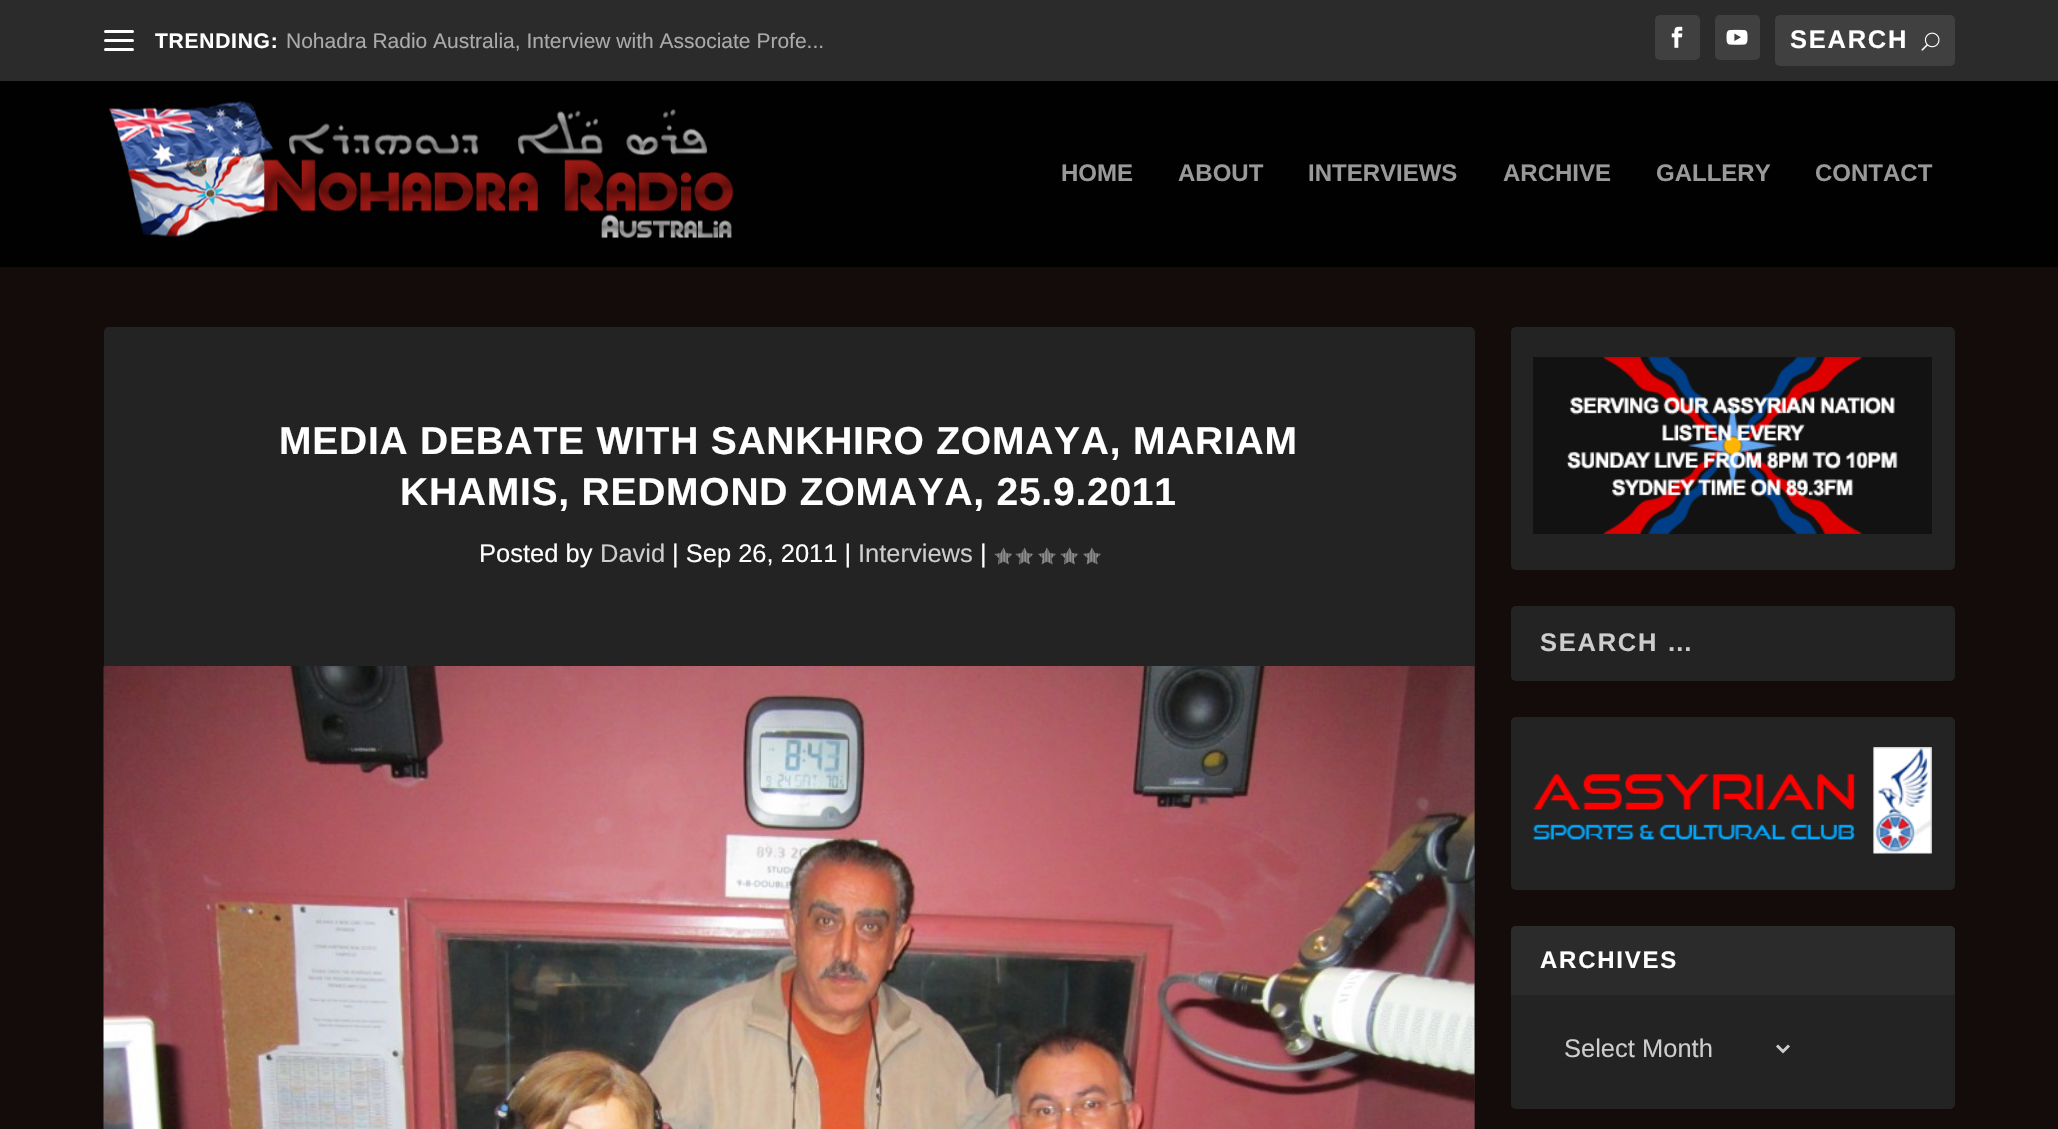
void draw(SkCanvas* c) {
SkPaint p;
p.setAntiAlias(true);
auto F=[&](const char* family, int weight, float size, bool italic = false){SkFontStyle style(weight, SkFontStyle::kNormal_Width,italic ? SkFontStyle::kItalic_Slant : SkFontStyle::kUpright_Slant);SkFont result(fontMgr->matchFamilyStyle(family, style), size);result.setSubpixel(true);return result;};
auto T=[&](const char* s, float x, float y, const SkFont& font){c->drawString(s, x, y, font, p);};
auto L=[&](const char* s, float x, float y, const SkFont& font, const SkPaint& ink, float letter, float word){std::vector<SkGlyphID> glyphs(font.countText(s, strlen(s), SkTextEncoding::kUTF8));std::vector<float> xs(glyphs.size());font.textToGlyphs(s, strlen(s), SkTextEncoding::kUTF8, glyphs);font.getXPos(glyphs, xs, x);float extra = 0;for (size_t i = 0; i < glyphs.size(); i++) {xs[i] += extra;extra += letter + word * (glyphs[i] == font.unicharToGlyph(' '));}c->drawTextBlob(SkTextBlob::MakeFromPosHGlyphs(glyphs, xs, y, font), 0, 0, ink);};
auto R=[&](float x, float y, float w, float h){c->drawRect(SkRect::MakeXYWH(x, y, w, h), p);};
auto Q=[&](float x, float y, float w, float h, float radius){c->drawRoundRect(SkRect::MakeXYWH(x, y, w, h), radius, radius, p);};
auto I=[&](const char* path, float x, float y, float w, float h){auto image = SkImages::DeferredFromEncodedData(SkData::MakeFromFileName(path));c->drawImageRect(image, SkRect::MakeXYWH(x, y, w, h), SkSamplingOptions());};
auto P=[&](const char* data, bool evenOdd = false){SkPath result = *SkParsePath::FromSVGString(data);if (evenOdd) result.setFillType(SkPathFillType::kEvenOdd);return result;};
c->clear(0xff140b0b);
p.setColor(0xff2b2b2b);
R(0,0,2058,81);
p.setColor(0xffffffff);
Q(104,30,30,3,1.5);
Q(104,39,30,3,1.5);
Q(104,48,30,3,1.5);
auto f1 = F("Liberation Sans",700,21);
L("TRENDING:",155,48,f1,p,.75,0);
auto f2 = F("Liberation Sans",400,21);
p.setColor(0xffaaaaaa);
T("Nohadra Radio Australia, Interview with Associate Profe...",286,48,f2);
p.setColor(0xff404040);
Q(1655,15,45,45,5);
I("1.png",1671,26,12,22);
Q(1715,15,45,45,5);
I("2.png",1726,29,22,16);
Q(1775,15,180,51,5);
auto f3 = F("Liberation Sans",700,25.5);
p.setColor(0xffffffff);
L("SEARCH",1790,48,f3,p,1.75,0);
I("3.png",1921,32,19,19);
p.setColor(0xff010101);
R(0,81,2058,186);
I("4.png",109,101,625,138);
auto f4 = F("Liberation Sans",700,24);
p.setColor(0xff999999);
T("HOME",1061,181,f4);
T("ABOUT",1178,181,f4);
T("INTERVIEWS",1308,181,f4);
T("ARCHIVE",1503,181,f4);
T("GALLERY",1656,181,f4);
T("CONTACT",1815,181,f4);
p.setColor(0xff232323);
Q(104,327,1371,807,5);
auto f5 = F("Liberation Sans",700,39);
p.setColor(0xffffffff);
L("MEDIA DEBATE WITH SANKHIRO ZOMAYA, MARIAM",279,454,f5,p,.75,0);
L("KHAMIS, REDMOND ZOMAYA, 25.9.2011",400,505,f5,p,.75,0);
auto f6 = F("Liberation Sans",400,25.5);
T("Posted by",479,562,f6);
p.setColor(0xffcdcdcd);
T("David",600,562,f6);
p.setColor(0xffffffff);
T("| Sep 26, 2011 |",672,562,f6);
p.setColor(0xffcdcdcd);
T("Interviews",858,562,f6);
p.setColor(0xffffffff);
T("|",980,562,f6);
I("5.png",994,547,19,18);
I("5.png",1015,547,19,18);
I("6.png",1038,547,18,18);
I("5.png",1060,547,19,18);
I("6.png",1083,547,18,18);
I("7.png",103,666,1372,463);
p.setColor(0xff232323);
Q(1511,327,444,243,5);
I("8.png",1533,357,399,177);
Q(1511,606,444,75,5);
p.setColor(0xffcdcdcd);
L("SEARCH …",1540,651,f3,p,1.75,0);
p.setColor(0xff232323);
Q(1511,717,444,173,5);
I("9.png",1533,747,399,107);
Q(1511,926,444,183,5);
p.setColor(0xff2b2b2b);
c->drawPath(P("M1516 926h434c3 0 5 2 5 5v64h-444v-64c0-3 2-5 5-5z"),p);
p.setColor(0xffffffff);
L("ARCHIVES",1540,968,f4,p,1.75,0);
p.setStroke(true);
p.setStrokeWidth(3);
p.setColor(0xffcdcdcd);
c->drawPath(P("M1777 1045.5l6 6l6-6"),p);
p.setStroke(false);
T("Select Month",1564,1057,f6);
}
